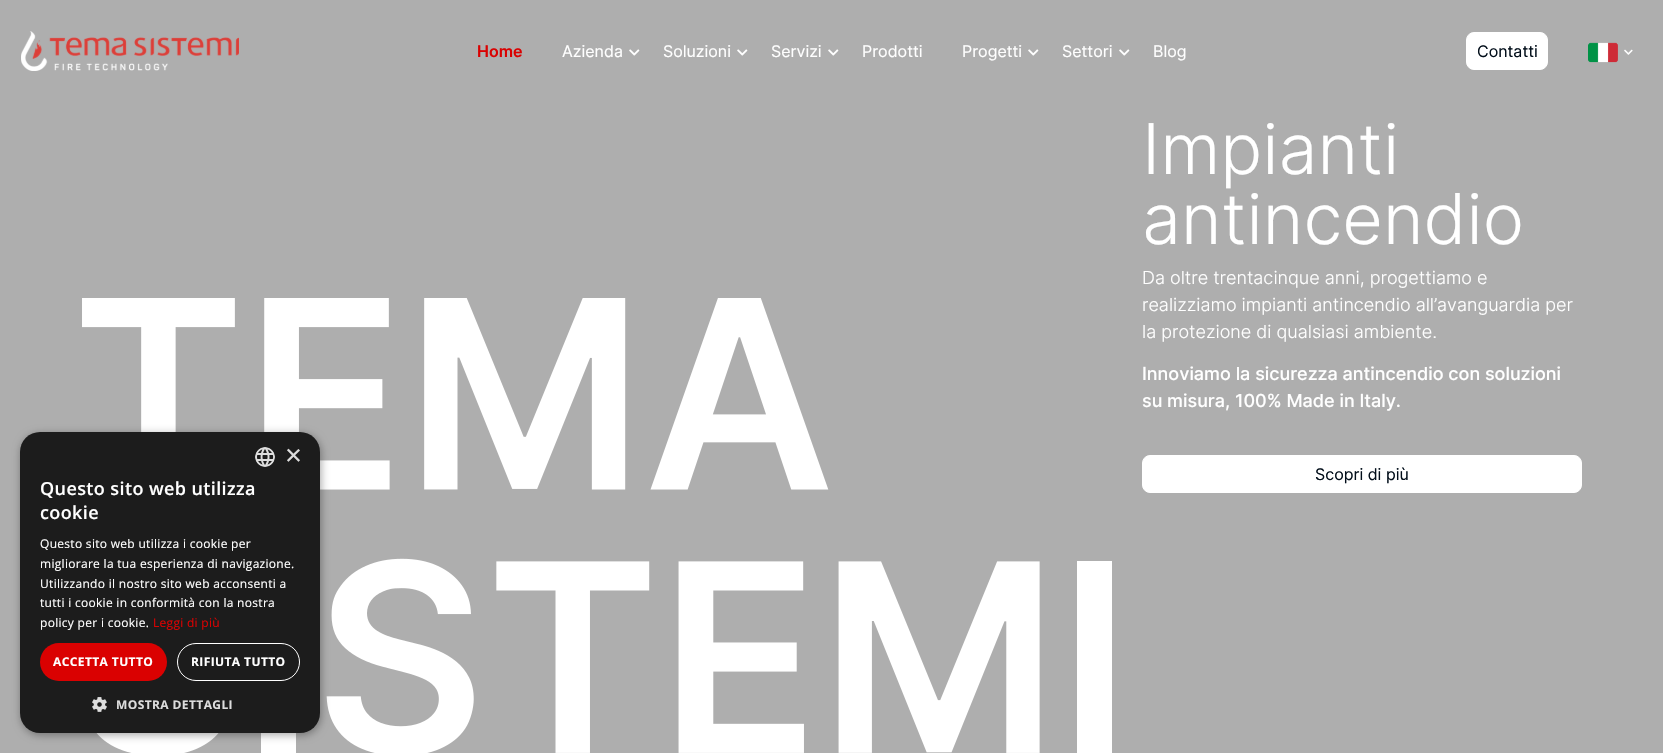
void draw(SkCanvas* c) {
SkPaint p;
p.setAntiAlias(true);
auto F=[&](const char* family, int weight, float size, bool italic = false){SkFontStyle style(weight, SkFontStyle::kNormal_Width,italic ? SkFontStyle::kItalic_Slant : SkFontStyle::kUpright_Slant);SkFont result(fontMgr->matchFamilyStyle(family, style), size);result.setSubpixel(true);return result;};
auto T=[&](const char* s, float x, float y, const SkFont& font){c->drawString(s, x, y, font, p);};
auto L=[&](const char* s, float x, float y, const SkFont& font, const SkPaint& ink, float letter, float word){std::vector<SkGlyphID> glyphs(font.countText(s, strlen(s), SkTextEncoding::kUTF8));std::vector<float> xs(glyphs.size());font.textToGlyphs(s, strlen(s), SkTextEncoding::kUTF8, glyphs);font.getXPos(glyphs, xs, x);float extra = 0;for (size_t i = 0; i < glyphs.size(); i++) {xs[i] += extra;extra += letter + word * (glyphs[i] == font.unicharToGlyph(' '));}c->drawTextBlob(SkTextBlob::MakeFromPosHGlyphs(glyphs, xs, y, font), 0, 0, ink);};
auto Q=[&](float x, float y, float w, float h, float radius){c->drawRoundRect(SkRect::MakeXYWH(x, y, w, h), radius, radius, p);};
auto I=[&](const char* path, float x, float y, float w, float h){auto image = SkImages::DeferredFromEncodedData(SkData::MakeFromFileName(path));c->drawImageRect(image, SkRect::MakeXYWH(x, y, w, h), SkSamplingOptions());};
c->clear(0xffaeaeae);
I("1.png",21,31,218,40);
auto f1 = F("Inter",600,16);
p.setColor(0xffda0101);
T("Home",477,57,f1);
auto f2 = F("Inter",400,16);
p.setColor(0xffffffff);
T("Azienda",562,57,f2);
I("2.png",629,49,11,7);
T("Soluzioni",663,57,f2);
I("2.png",737,49,11,7);
T("Servizi",771,57,f2);
I("2.png",828,49,11,7);
T("Prodotti",862,57,f2);
T("Progetti",962,57,f2);
I("2.png",1028,49,11,7);
T("Settori",1062,57,f2);
I("2.png",1119,49,11,7);
T("Blog",1153,57,f2);
c->drawRoundRect(SkRect::MakeXYWH(1466.5,32.5,81,37),7.5,7.5,p);
p.setStroke(true);
p.setStrokeWidth(1);
c->drawRoundRect(SkRect::MakeXYWH(1466.5,32.5,81,37),7.5,7.5,p);
p.setStroke(false);
p.setColor(0xff020e1a);
T("Contatti",1477,57,f2);
I("3.png",1588,42,30,21);
I("4.png",1624,49,9,6);
I("5.png",82,298,1030,455);
auto f3 = F("Inter",300,70);
p.setColor(0xffffffff);
T("Impianti",1142,174,f3);
T("antincendio",1142,244,f3);
auto f4 = F("Inter",300,18);
T("Da oltre trentacinque anni, progettiamo e",1142,284,f4);
T("realizziamo impianti antincendio all’avanguardia per",1142,311,f4);
T("la protezione di qualsiasi ambiente.",1142,338,f4);
auto f5 = F("Inter",500,18);
T("Innoviamo la sicurezza antincendio con soluzioni",1142,380,f5);
T("su misura, 100% Made in Italy.",1142,407,f5);
c->drawRoundRect(SkRect::MakeXYWH(1142.5,455.5,439,37),7.5,7.5,p);
p.setStroke(true);
c->drawRoundRect(SkRect::MakeXYWH(1142.5,455.5,439,37),7.5,7.5,p);
p.setStroke(false);
p.setColor(0xff020e1a);
T("Scopri di più",1315,480,f2);
p.setColor(0x59000000);
p.setMaskFilter(SkMaskFilter::MakeBlur(kNormal_SkBlurStyle, 4));
c->drawRoundRect(SkRect::MakeXYWH(21,434,300,301),20,20,p);
p.setMaskFilter(nullptr);
p.setColor(0xff1c1c1c);
Q(20,432,300,301,20);
I("6.png",255,447,20,20);
auto f6 = F("Liberation Sans",400,29);
p.setColor(0xffdddddd);
T("×",285,465,f6);
auto f7 = F("Open Sans",600,18);
p.setColor(0xffffffff);
L("Questo sito web utilizza",40,495,f7,p,.4,0);
L("cookie",40,519,f7,p,.4,0);
auto f8 = F("Open Sans",400,12);
L("Questo sito web utilizza i cookie per",40,548,f8,p,.3,0);
L("migliorare la tua esperienza di navigazione.",40,568,f8,p,.3,0);
L("Utilizzando il nostro sito web acconsenti a",40,588,f8,p,.3,0);
L("tutti i cookie in conformità con la nostra",40,607,f8,p,.3,0);
L("policy per i cookie.",40,627,f8,p,.3,0);
p.setColor(0xffda0101);
L("Leggi di più",153,627,f8,p,.3,0);
Q(40,643,127,38,19);
auto f9 = F("Open Sans",700,12);
p.setColor(0xffffffff);
L("ACCETTA TUTTO",53,666,f9,p,.4,0);
p.setStroke(true);
c->drawRoundRect(SkRect::MakeXYWH(177.5,643.5,122,37),18.5,18.5,p);
p.setStroke(false);
L("RIFIUTA TUTTO",191,666,f9,p,.4,0);
I("7.png",92,697,15,15);
p.setColor(0xffdddddd);
L("MOSTRA DETTAGLI",116,709,f9,p,.4,0);
}
